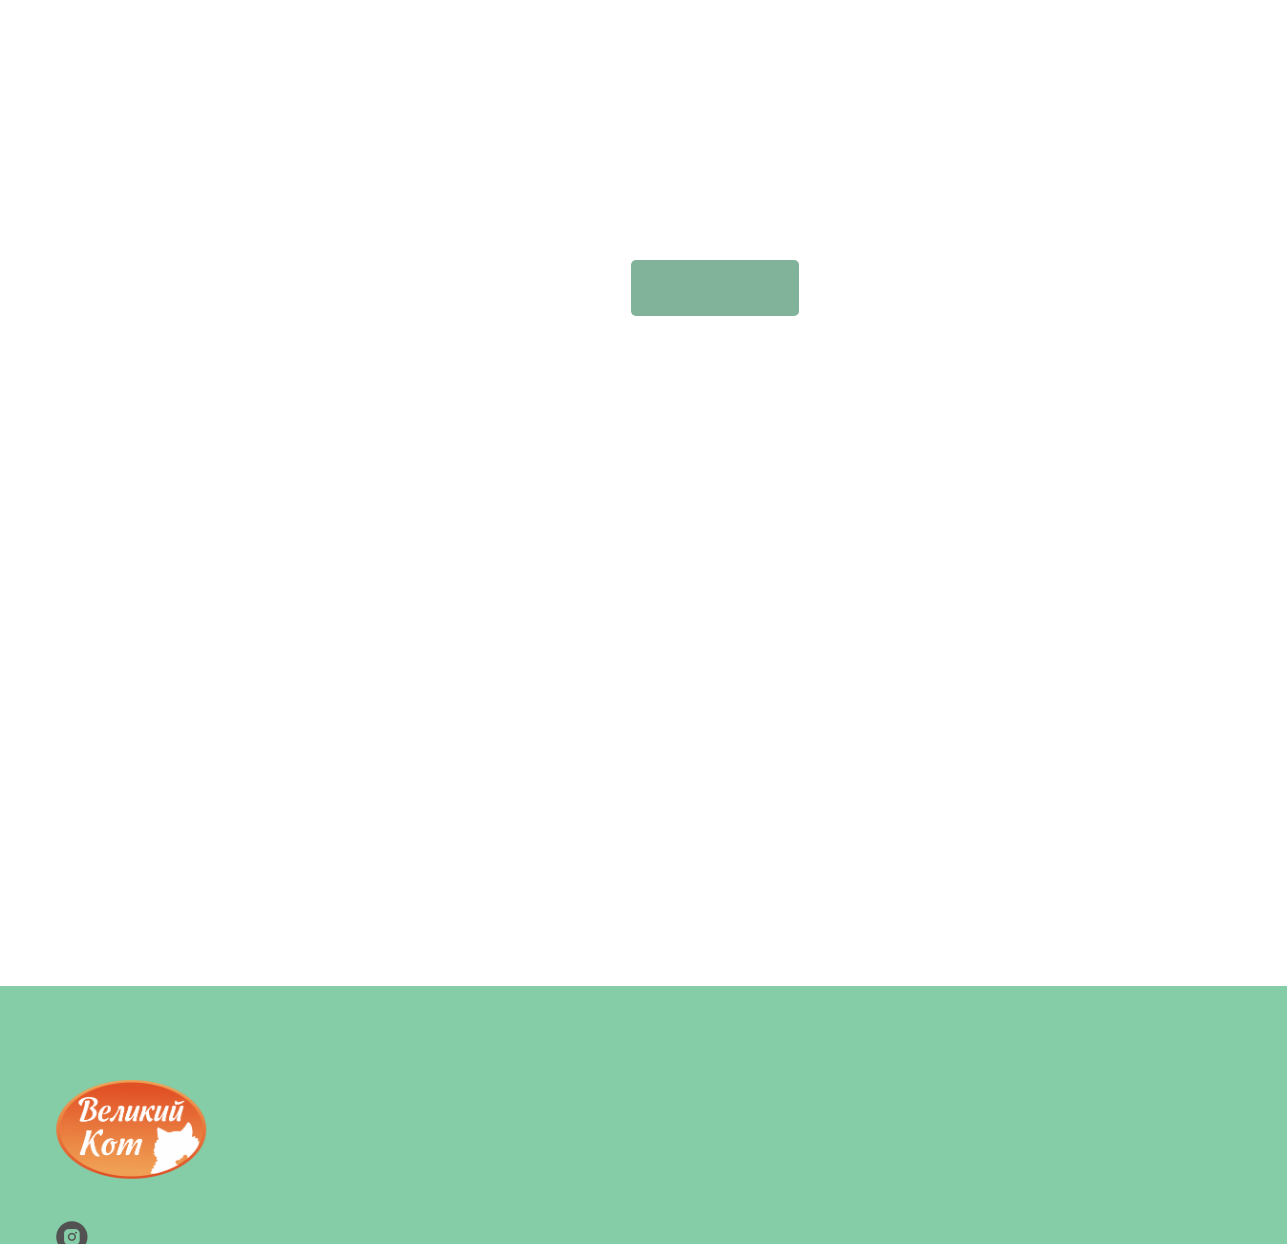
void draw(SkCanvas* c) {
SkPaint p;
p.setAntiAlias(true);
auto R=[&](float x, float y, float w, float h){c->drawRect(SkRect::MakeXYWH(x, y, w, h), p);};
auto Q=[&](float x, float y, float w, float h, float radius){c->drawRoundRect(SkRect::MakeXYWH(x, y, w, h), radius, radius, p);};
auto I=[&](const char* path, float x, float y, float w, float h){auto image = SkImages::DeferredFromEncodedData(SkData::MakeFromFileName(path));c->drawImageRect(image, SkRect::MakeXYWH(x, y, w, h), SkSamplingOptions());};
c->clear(0xffffffff);
p.setColor(0xff80b399);
Q(631,260,168,56,5);
p.setColor(0xff84cda7);
R(0,986,1287,258);
I("1.png",56,1080,151,99);
I("2.png",56,1221,32,23);
}
